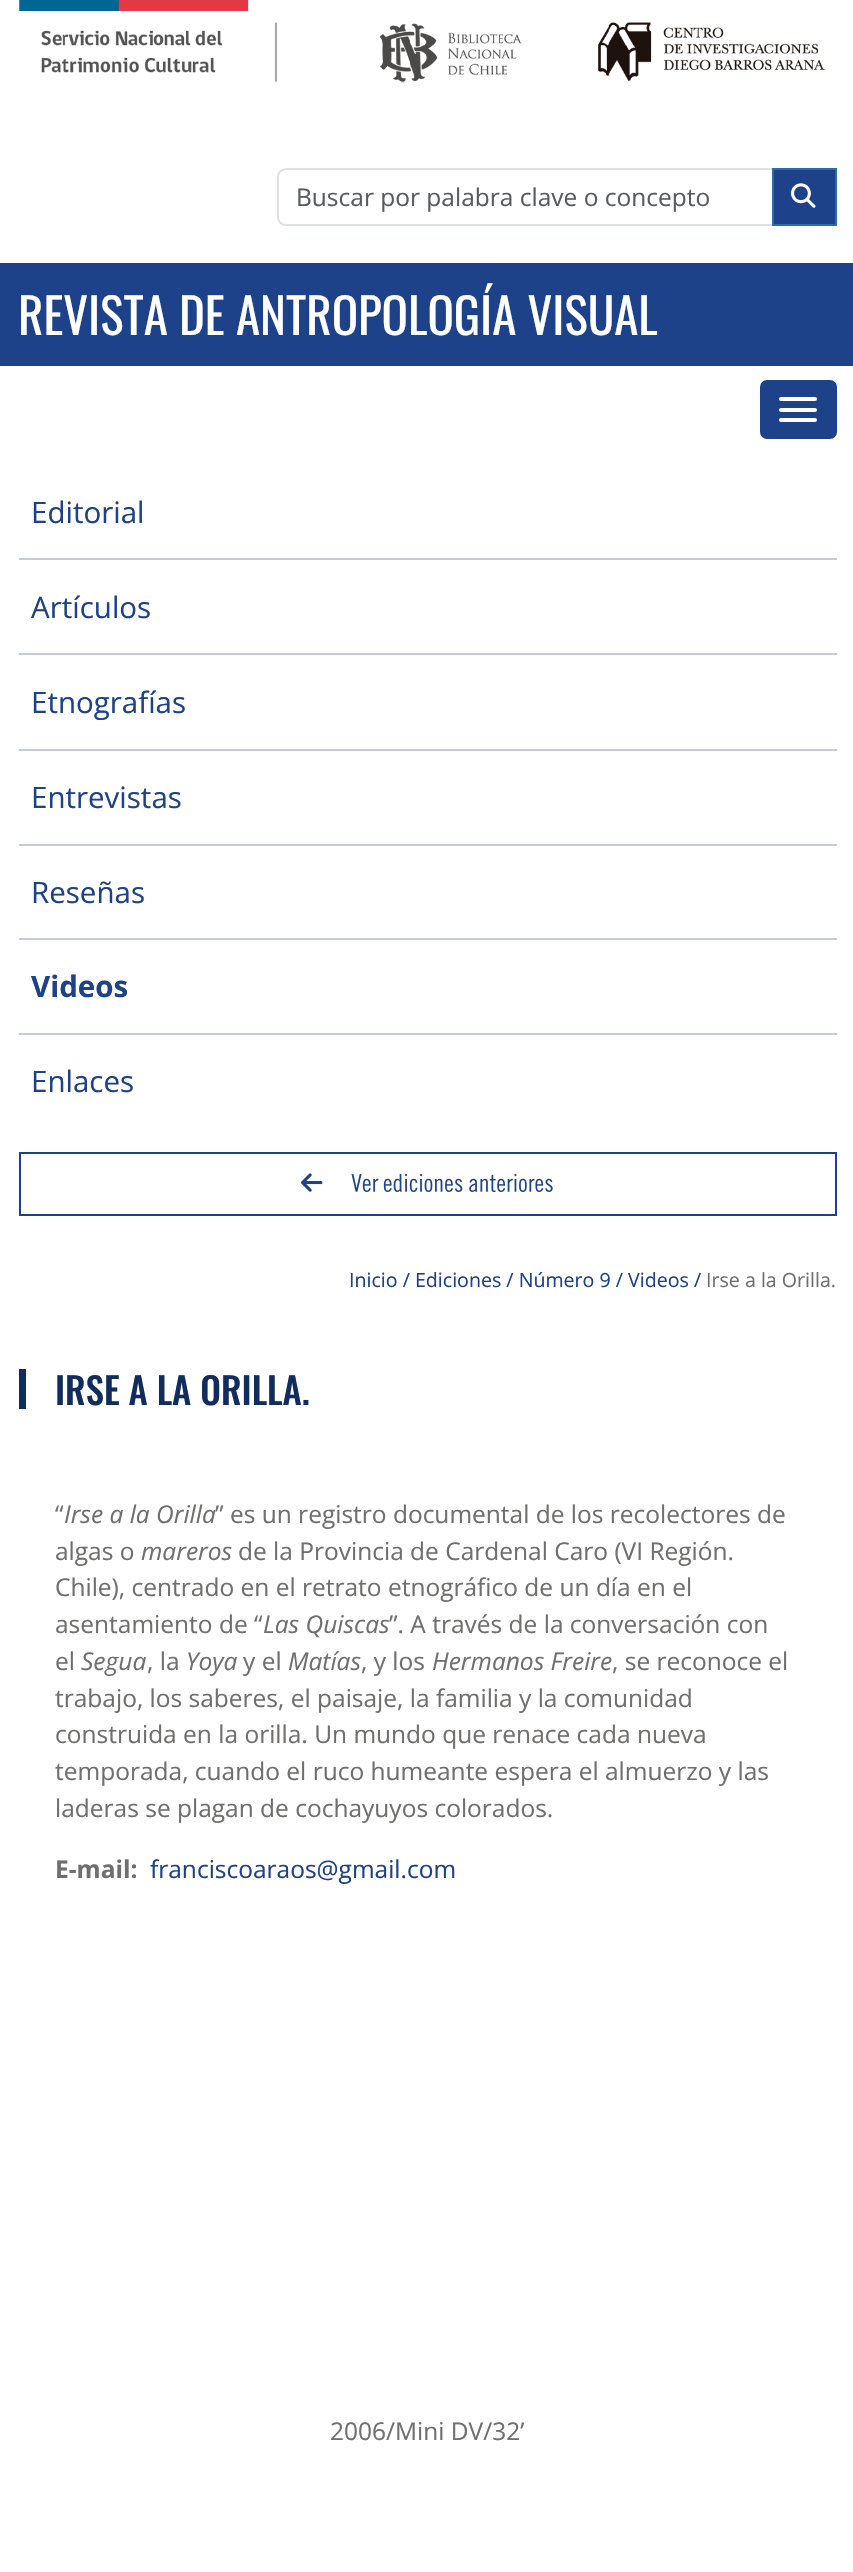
void draw(SkCanvas* c) {
SkPaint p;
p.setAntiAlias(true);
auto F=[&](const char* family, int weight, float size, bool italic = false){SkFontStyle style(weight, SkFontStyle::kNormal_Width,italic ? SkFontStyle::kItalic_Slant : SkFontStyle::kUpright_Slant);SkFont result(fontMgr->matchFamilyStyle(family, style), size);result.setSubpixel(true);return result;};
auto T=[&](const char* s, float x, float y, const SkFont& font){c->drawString(s, x, y, font, p);};
auto R=[&](float x, float y, float w, float h){c->drawRect(SkRect::MakeXYWH(x, y, w, h), p);};
auto Q=[&](float x, float y, float w, float h, float radius){c->drawRoundRect(SkRect::MakeXYWH(x, y, w, h), radius, radius, p);};
auto I=[&](const char* path, float x, float y, float w, float h){auto image = SkImages::DeferredFromEncodedData(SkData::MakeFromFileName(path));c->drawImageRect(image, SkRect::MakeXYWH(x, y, w, h), SkSamplingOptions());};
auto P=[&](const char* data, bool evenOdd = false){SkPath result = *SkParsePath::FromSVGString(data);if (evenOdd) result.setFillType(SkPathFillType::kEvenOdd);return result;};
c->clear(0xffffffff);
I("1.png",19,0,259,83);
I("2.png",379,23,143,60);
I("3.png",598,22,227,60);
p.setStroke(true);
p.setStrokeWidth(2);
p.setColor(0xffdee2e6);
c->drawPath(P("M286 169h487v56h-487c-4.5 0-8-3.5-8-8v-40c0-4.5 3.5-8 8-8z"),p);
auto f1 = F("Open Sans",400,24.5);
p.setStroke(false);
p.setColor(0xff595c5f);
T("Buscar por palabra clave o concepto",296,206,f1);
p.setColor(0xff1d428a);
c->drawRect(SkRect::MakeXYWH(773,169,63,56),p);
p.setStroke(true);
p.setColor(0xff2e6da4);
c->drawRect(SkRect::MakeXYWH(773,169,63,56),p);
I("4.png",791,183,25,25);
p.setStroke(false);
p.setColor(0xff1d428a);
R(0,263,853,103);
auto f2 = F("Oswald",400,49);
p.setColor(0xffffffff);
T("REVISTA DE ANTROPOLOGÍA VISUAL",18,335,f2);
p.setColor(0xff1d428a);
Q(760,380,77,59,7);
p.setColor(0xffffffff);
Q(779,397,38,4,2);
Q(779,408,38,4,2);
Q(779,418,38,4,2);
p.setColor(0xffc5cbd7);
R(19,558,818,2);
auto f3 = F("Open Sans",400,29.5);
p.setColor(0xff1d428a);
T("Editorial",31,523,f3);
p.setColor(0xffc5cbd7);
R(19,653,818,2);
p.setColor(0xff1d428a);
T("Artículos",31,618,f3);
p.setColor(0xffc5cbd7);
R(19,749,818,2);
p.setColor(0xff1d428a);
T("Etnografías",31,713,f3);
p.setColor(0xffc5cbd7);
R(19,844,818,2);
p.setColor(0xff1d428a);
T("Entrevistas",31,808,f3);
p.setColor(0xffc5cbd7);
R(19,938,818,2);
p.setColor(0xff1d428a);
T("Reseñas",31,903,f3);
p.setColor(0xffc5cbd7);
R(19,1033,818,2);
auto f4 = F("Open Sans",700,29.5);
p.setColor(0xff1d428a);
T("Videos",31,997,f4);
T("Enlaces",31,1092,f3);
p.setStroke(true);
c->drawRect(SkRect::MakeXYWH(20,1153,816,62),p);
I("5.png",301,1173,22,19);
I("6.png",351,1174,202,18);
auto f5 = F("Open Sans",400,19.6);
p.setStroke(false);
T("Inicio / Ediciones / Número 9 / Videos /",349,1287,f5);
p.setColor(0xff706f6e);
T("Irse a la Orilla.",706,1287,f5);
p.setColor(0xff122c5d);
R(19,1369,7,40);
auto f6 = F("Oswald",500,36.75);
T("IRSE A LA ORILLA.",55,1405,f6);
p.setColor(0xff706f6e);
T("“",55,1523,f1);
auto f7 = F("Open Sans",400,24.5,true);
T("Irse a la Orilla",64,1523,f7);
T("” es un registro documental de los recolectores de",215,1523,f1);
T("algas o",55,1560,f1);
T("mareros",141,1560,f7);
T("de la Provincia de Cardenal Caro (VI Región.",238,1560,f1);
T("Chile), centrado en el retrato etnográfico de un día en el",55,1596,f1);
T("asentamiento de “",55,1633,f1);
T("Las Quiscas",263,1633,f7);
T("”. A través de la conversación con",389,1633,f1);
T("el",55,1670,f1);
T("Segua",81,1670,f7);
T(", la",147,1670,f1);
T("Yoya",186,1670,f7);
T("y el",243,1670,f1);
T("Matías",288,1670,f7);
T(", y los",361,1670,f1);
T("Hermanos Freire",432,1670,f7);
T(", se reconoce el",612,1670,f1);
T("trabajo, los saberes, el paisaje, la familia y la comunidad",55,1707,f1);
T("construida en la orilla. Un mundo que renace cada nueva",55,1743,f1);
T("temporada, cuando el ruco humeante espera el almuerzo y las",55,1780,f1);
T("laderas se plagan de cochayuyos colorados.",55,1817,f1);
auto f8 = F("Open Sans",700,24.5);
T("E-mail:",55,1878,f8);
p.setColor(0xff1d428a);
T("franciscoaraos@gmail.com",150,1878,f1);
p.setColor(0xff706f6e);
T("2006/Mini DV/32’",330,2440,f1);
}
